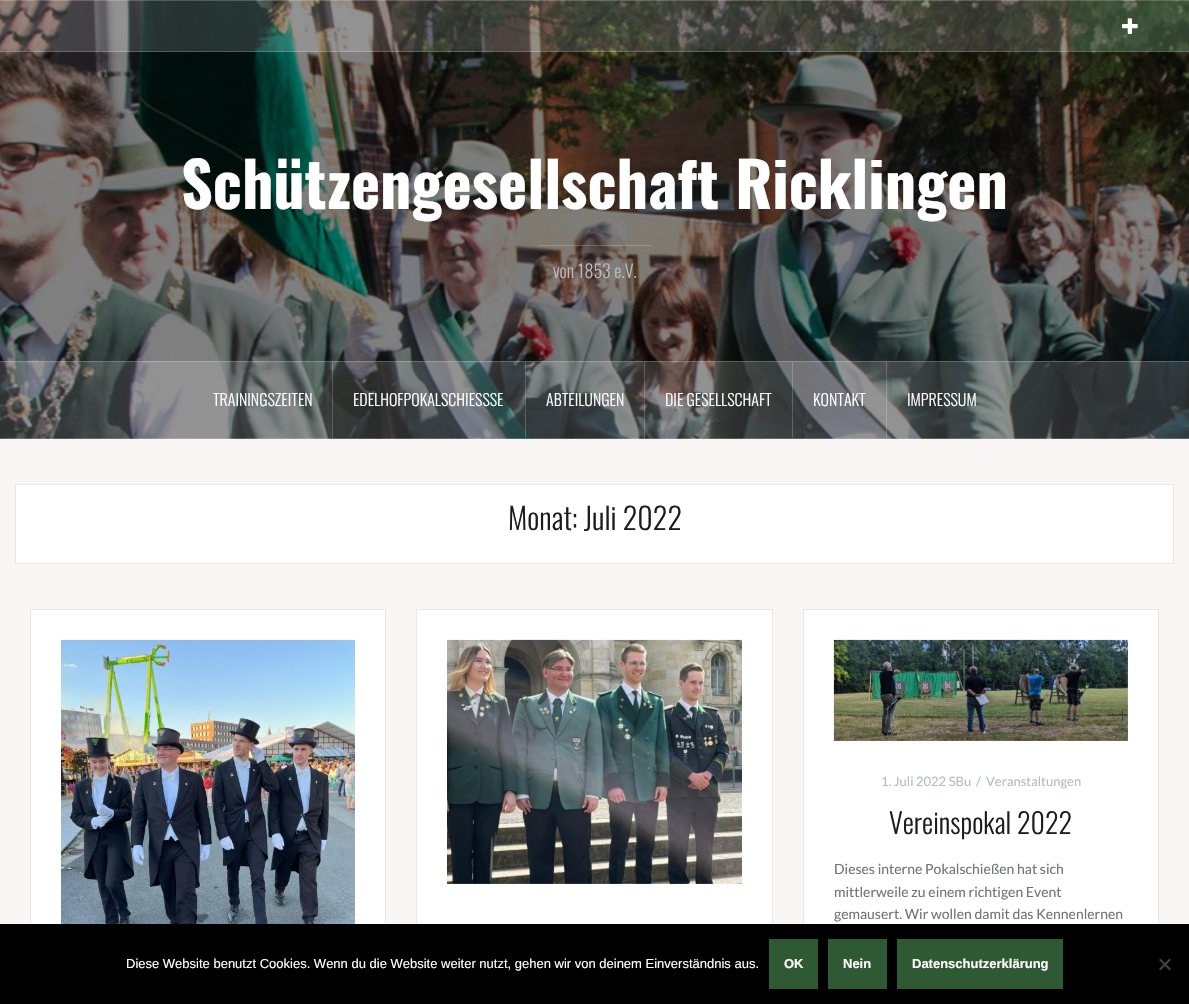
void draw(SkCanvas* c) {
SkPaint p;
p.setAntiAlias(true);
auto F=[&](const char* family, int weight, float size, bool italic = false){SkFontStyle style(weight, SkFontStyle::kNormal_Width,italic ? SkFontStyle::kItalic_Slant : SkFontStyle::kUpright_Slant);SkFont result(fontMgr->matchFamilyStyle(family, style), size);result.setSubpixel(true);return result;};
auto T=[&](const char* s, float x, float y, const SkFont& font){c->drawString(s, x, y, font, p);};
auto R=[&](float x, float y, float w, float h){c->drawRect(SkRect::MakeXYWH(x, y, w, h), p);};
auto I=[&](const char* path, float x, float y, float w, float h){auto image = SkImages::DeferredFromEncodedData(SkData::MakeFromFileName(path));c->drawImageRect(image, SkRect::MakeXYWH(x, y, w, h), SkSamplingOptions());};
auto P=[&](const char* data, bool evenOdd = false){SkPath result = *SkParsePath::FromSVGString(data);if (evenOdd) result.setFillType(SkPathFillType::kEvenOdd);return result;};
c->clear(0xfff9f6f5);
I("1.png",0,0,1189,439);
p.setColor(0x26ffffff);
R(0,0,1189,52);
p.setColor(0x33ffffff);
R(0,0,1189,1);
R(0,51,1189,1);
p.setColor(0x662f5932);
R(1070,1,119,50);
I("2.png",1122,18,16,16);
auto f1 = F("Oswald",700,62);
p.setColor(0xffffffff);
T("Schützengesellschaft Ricklingen",181,209,f1);
p.setColor(0x33ffffff);
R(538,245,113,1);
auto f2 = F("Oswald",300,18);
p.setColor(0xffbbbbbb);
T("von 1853 e.V.",553,278,f2);
p.setColor(0x26ffffff);
R(0,361,1189,78);
p.setColor(0x33ffffff);
R(0,361,1189,1);
R(0,438,1189,1);
R(332,362,1,76);
auto f3 = F("Oswald",300,16);
p.setColor(0xffffffff);
T("TRAININGSZEITEN",213,406,f3);
p.setColor(0x33ffffff);
R(525,362,1,76);
p.setColor(0xffffffff);
T("EDELHOFPOKALSCHIESSSE",353,406,f3);
p.setColor(0x33ffffff);
R(644,362,1,76);
p.setColor(0xffffffff);
T("ABTEILUNGEN",546,406,f3);
p.setColor(0x33ffffff);
R(792,362,1,76);
p.setColor(0xffffffff);
T("DIE GESELLSCHAFT",665,406,f3);
p.setColor(0x33ffffff);
R(886,362,1,76);
p.setColor(0xffffffff);
T("KONTAKT",813,406,f3);
T("IMPRESSUM",907,406,f3);
c->drawRect(SkRect::MakeXYWH(15.5,484.5,1158,79),p);
p.setStroke(true);
p.setStrokeWidth(1);
p.setColor(0xffe8e8e8);
c->drawRect(SkRect::MakeXYWH(15.5,484.5,1158,79),p);
auto f4 = F("Oswald",300,30);
p.setStroke(false);
p.setColor(0xff1c1c1c);
T("Monat: Juli 2022",508,530,f4);
p.setColor(0xffffffff);
R(31,610,354,314);
p.setStroke(true);
p.setColor(0xffe8e8e8);
c->drawRect(SkRect::MakeXYWH(30.5,609.5,355,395),p);
I("3.png",61,639,294,285);
p.setStroke(false);
p.setColor(0xffffffff);
R(417,610,355,314);
p.setStroke(true);
p.setColor(0xffe8e8e8);
c->drawRect(SkRect::MakeXYWH(416.5,609.5,356,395),p);
I("4.png",447,639,295,245);
p.setStroke(false);
p.setColor(0xffffffff);
R(804,610,354,314);
p.setStroke(true);
p.setColor(0xffe8e8e8);
c->drawRect(SkRect::MakeXYWH(803.5,609.5,355,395),p);
I("5.png",833,639,295,102);
auto f5 = F("Lato",400,13);
p.setStroke(false);
p.setColor(0xffb5bbc5);
T("1. Juli 2022 SBu",881,786,f5);
T("/",976,786,f5);
T("Veranstaltungen",986,786,f5);
auto f6 = F("Oswald",300,28);
p.setColor(0xff1c1c1c);
T("Vereinspokal 2022",889,834,f6);
auto f7 = F("Lato",400,14);
p.setColor(0xff717376);
T("Dieses interne Pokalschießen hat sich",834,874,f7);
T("mittlerweile zu einem richtigen Event",834,897,f7);
T("gemausert. Wir wollen damit das Kennenlernen",834,919,f7);
p.setColor(0xff000000);
R(0,924,1189,80);
auto f8 = F("Liberation Sans",400,13);
p.setColor(0xffffffff);
T("Diese Website benutzt Cookies. Wenn du die Website weiter nutzt, gehen wir von deinem Einverständnis aus.",126,968,f8);
p.setColor(0xff2f5932);
R(769,939,49,50);
auto f9 = F("Liberation Sans",700,13);
p.setColor(0xffffffff);
T("OK",784,968,f9);
p.setColor(0xff2f5932);
R(828,939,59,50);
p.setColor(0xffffffff);
T("Nein",843,968,f9);
p.setColor(0xff2f5932);
R(897,939,166,50);
p.setColor(0xffffffff);
T("Datenschutzerklärung",912,968,f9);
p.setColor(0xff404040);
c->drawPath(P("M1169.5 958.5l1.5 1.5l-10.5 10.5l-1.5-1.5z"),p);
c->drawPath(P("M1159 960l1.5-1.5l10.5 10.5l-1.5 1.5z"),p);
}
